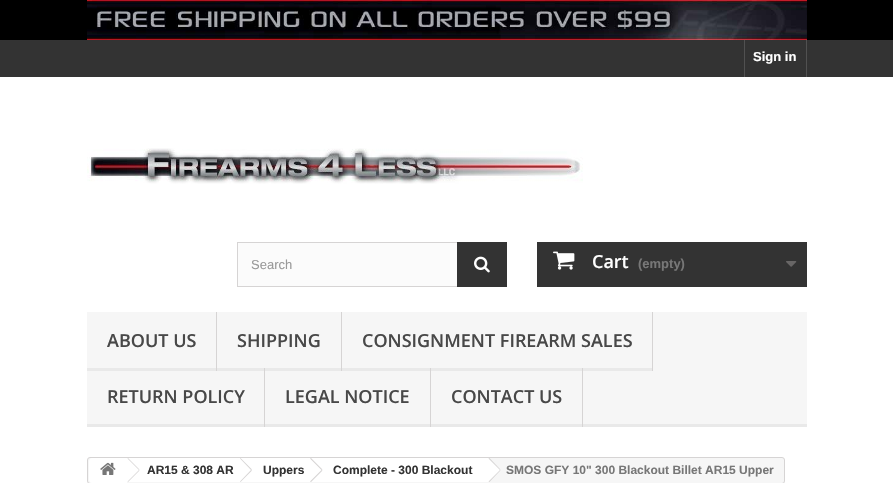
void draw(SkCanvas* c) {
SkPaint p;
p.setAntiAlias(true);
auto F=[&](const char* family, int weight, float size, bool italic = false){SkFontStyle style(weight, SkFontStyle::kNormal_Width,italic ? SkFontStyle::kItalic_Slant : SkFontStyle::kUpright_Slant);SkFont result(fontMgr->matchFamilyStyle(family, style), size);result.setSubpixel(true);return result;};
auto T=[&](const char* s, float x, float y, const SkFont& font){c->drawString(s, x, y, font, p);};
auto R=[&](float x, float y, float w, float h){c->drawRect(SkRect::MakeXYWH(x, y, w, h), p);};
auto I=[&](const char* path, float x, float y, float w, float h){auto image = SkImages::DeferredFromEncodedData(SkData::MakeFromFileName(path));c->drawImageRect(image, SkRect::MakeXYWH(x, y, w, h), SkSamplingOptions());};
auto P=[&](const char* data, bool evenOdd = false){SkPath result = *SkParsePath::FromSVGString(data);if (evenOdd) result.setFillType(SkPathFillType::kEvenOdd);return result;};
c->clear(0xffffffff);
p.setColor(0xff000000);
R(0,0,893,40);
I("1.png",87,0,720,40);
p.setColor(0xff333333);
R(0,40,893,37);
p.setColor(0xff515151);
R(806,40,1,37);
R(744,40,1,37);
auto f1 = F("Liberation Sans",700,13);
p.setColor(0xffffffff);
T("Sign in",753,61,f1);
I("2.png",87,148,496,36);
p.setColor(0xfffbfbfb);
R(238,243,219,43);
p.setStroke(true);
p.setStrokeWidth(1);
p.setColor(0xffd6d4d4);
c->drawRect(SkRect::MakeXYWH(237.5,242.5,269,44),p);
auto f2 = F("Liberation Sans",400,13);
p.setStroke(false);
p.setColor(0xff999999);
T("Search",251,269,f2);
p.setColor(0xff333333);
R(457,242,50,45);
I("3.png",474,256,16,17);
R(537,242,270,45);
I("4.png",553,251,22,19);
auto f3 = F("Open Sans",600,18);
p.setColor(0xffffffff);
T("Cart",592,268,f3);
p.setColor(0xff777777);
T("(empty)",638,268,f1);
I("5.png",786,261,11,6);
p.setColor(0xfff6f6f6);
R(87,312,720,112);
p.setColor(0xffe9e9e9);
R(87,424,720,3);
p.setColor(0xffd6d4d4);
R(216,312,1,59);
p.setColor(0xffe9e9e9);
R(87,368,129,3);
p.setColor(0xff484848);
T("ABOUT US",107,347,f3);
p.setColor(0xffd6d4d4);
R(341,312,1,59);
p.setColor(0xffe9e9e9);
R(217,368,124,3);
p.setColor(0xff484848);
T("SHIPPING",237,347,f3);
p.setColor(0xffd6d4d4);
R(652,312,1,59);
p.setColor(0xffe9e9e9);
R(342,368,310,3);
p.setColor(0xff484848);
T("CONSIGNMENT FIREARM SALES",362,347,f3);
p.setColor(0xffd6d4d4);
R(264,368,1,59);
p.setColor(0xff484848);
T("RETURN POLICY",107,403,f3);
p.setColor(0xffd6d4d4);
R(430,368,1,59);
p.setColor(0xff484848);
T("LEGAL NOTICE",285,403,f3);
p.setColor(0xffd6d4d4);
R(582,368,1,59);
p.setColor(0xff484848);
T("CONTACT US",451,403,f3);
p.setColor(0xfff6f6f6);
c->drawRoundRect(SkRect::MakeXYWH(87.5,457.5,697,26),2.5,2.5,p);
p.setStroke(true);
p.setColor(0xffd6d4d4);
c->drawRoundRect(SkRect::MakeXYWH(87.5,457.5,697,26),2.5,2.5,p);
p.setStroke(false);
p.setColor(0xffffffff);
c->drawPath(P("M92 458h35v25h-35c-1.5 0-3-1.5-3-3v-19c0-1.5 1.5-3 3-3z"),p);
I("6.png",100,462,16,13);
R(127,458,114,24);
p.setColor(0xffd6d4d4);
c->drawPath(P("M128 458l11.5 11.5l-.5 .5l-11.5-11.5zm11 12l.5 .5l-11.5 11.5l-.5-.5z"),p);
auto f4 = F("Liberation Sans",700,12);
p.setColor(0xff333333);
T("AR15 & 308 AR",147,474,f4);
p.setColor(0xffffffff);
c->drawPath(P("M251.5 458.5l9.5 10c1 1 1 2 0 3l-9.5 10c-1 .5-2 .5-3 0l-10-10c-.5-1-.5-2 0-3l10-10c1-.5 2-.5 3 0z"),p);
R(241,458,70,24);
p.setColor(0xffd6d4d4);
c->drawPath(P("M240.5 458l11.5 11.5l-1 .5l-11-11.5zm10.5 12l1 .5l-11.5 11.5l-.5-.5z"),p);
p.setColor(0xff333333);
T("Uppers",263,474,f4);
p.setColor(0xffffffff);
c->drawPath(P("M321.5 458.5l10 10c1 1 1 2 0 3l-10 10c-.5 .5-2 .5-2.5 0l-10-10c-1-1-1-2 0-3l10-10c.5-.5 2-.5 2.5 0z"),p);
R(311,458,177,24);
p.setColor(0xffd6d4d4);
c->drawPath(P("M311 458l11.5 11.5l-1 .5l-11.5-11.5zm10.5 12l1 .5l-11.5 11.5l-1-.5z"),p);
p.setColor(0xff333333);
T("Complete - 300 Blackout",333,474,f4);
p.setColor(0xffffffff);
c->drawPath(P("M490 458.5l10 10c.5 1 .5 2 0 3l-10 10c-1 .5-2 .5-3 0l-9.5-10c-1-1-1-2 0-3l9.5-10c1-.5 2-.5 3 0z"),p);
p.setColor(0xffd6d4d4);
c->drawPath(P("M489.5 458l11 11.5l-.5 .5l-11.5-11.5zm10.5 12l.5 .5l-11 11.5l-1-.5z"),p);
p.setColor(0xff777777);
T("SMOS GFY 10\" 300 Blackout Billet AR15 Upper",506,474,f4);
}
